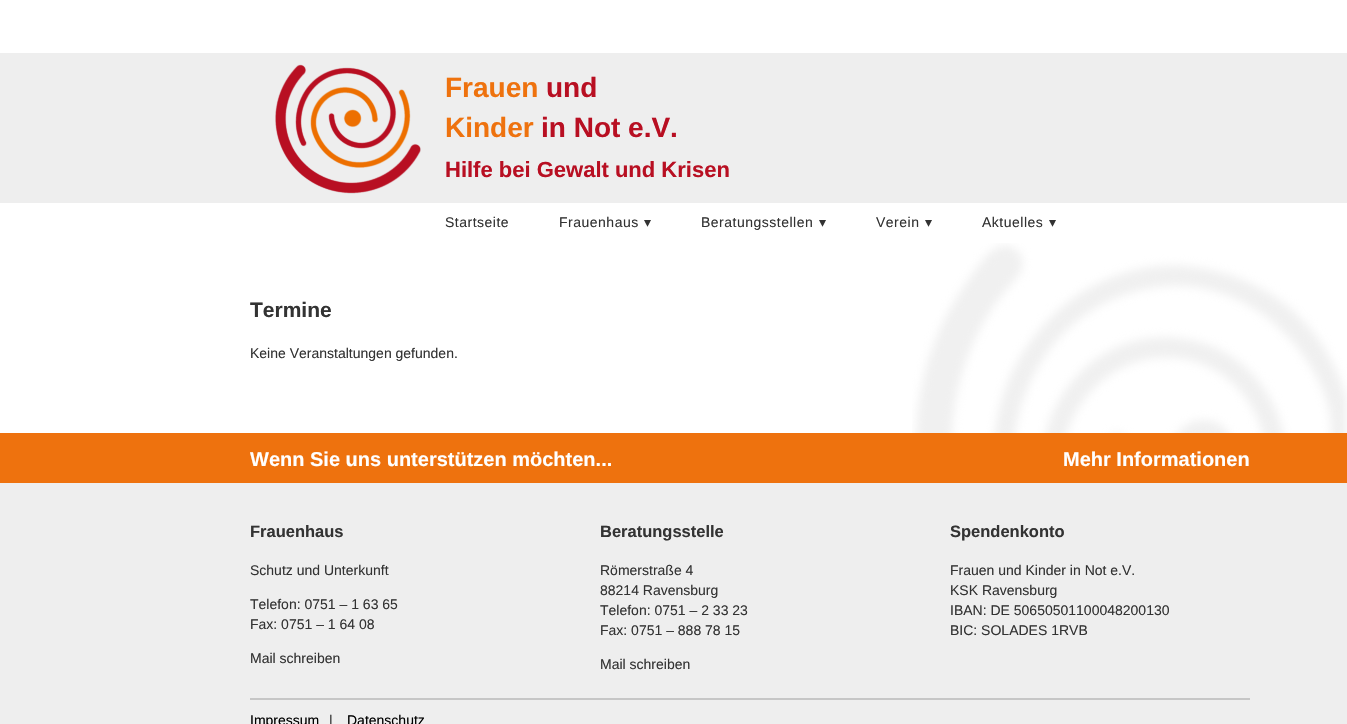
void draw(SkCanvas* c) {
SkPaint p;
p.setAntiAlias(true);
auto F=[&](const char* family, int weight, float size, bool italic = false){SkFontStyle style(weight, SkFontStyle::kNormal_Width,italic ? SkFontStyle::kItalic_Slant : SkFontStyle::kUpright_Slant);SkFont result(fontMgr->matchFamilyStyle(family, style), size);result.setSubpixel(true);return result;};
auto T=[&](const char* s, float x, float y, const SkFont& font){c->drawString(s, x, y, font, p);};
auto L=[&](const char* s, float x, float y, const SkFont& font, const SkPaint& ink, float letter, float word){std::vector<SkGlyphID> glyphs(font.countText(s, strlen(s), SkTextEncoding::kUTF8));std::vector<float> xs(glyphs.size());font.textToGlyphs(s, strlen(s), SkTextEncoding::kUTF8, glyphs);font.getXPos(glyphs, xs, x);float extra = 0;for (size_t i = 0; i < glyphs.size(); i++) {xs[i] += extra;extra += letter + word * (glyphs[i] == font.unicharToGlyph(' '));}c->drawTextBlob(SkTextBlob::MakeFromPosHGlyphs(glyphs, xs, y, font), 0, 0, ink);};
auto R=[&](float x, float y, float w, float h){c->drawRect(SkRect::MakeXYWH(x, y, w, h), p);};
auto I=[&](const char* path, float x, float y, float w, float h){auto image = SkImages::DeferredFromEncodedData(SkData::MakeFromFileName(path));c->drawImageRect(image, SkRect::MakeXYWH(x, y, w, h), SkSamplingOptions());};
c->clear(0xffffffff);
{
const SkColor colors[] = {0xffffffff,0xffffffff,0xffeeeeee,0xffeeeeee};
const float stops[] = {0,.11,.11,1};
const SkPoint ends[] = {{674,3}, {674,453}};
p.setShader(SkGradientShader::MakeLinear(ends, colors, stops, 4, SkTileMode::kClamp));
p.setAlpha(255);
}
R(0,53,1347,150);
I("1.png",275,64,146,130);
auto f1 = F("Liberation Sans",700,28);
p.setShader(nullptr);
p.setColor(0xffee720e);
T("Frauen",445,97,f1);
p.setColor(0xffb80f22);
T("und",546,97,f1);
p.setColor(0xffee720e);
T("Kinder",445,137,f1);
p.setColor(0xffb80f22);
T("in Not e.V.",541,137,f1);
auto f2 = F("Liberation Sans",700,22);
T("Hilfe bei Gewalt und Krisen",445,177,f2);
auto f3 = F("Liberation Sans",400,14);
p.setColor(0xff333333);
L("Startseite",445,227,f3,p,.5,0);
L("Frauenhaus",559,227,f3,p,.5,0);
auto f4 = F("DejaVu Sans",400,14);
L("▾",644,227,f4,p,.5,0);
L("Beratungsstellen",701,227,f3,p,.5,0);
L("▾",819,227,f4,p,.5,0);
L("Verein",876,227,f3,p,.5,0);
L("▾",925,227,f4,p,.5,0);
L("Aktuelles",982,227,f3,p,.5,0);
L("▾",1049,227,f4,p,.5,0);
auto f5 = F("Liberation Sans",700,21);
T("Termine",250,317,f5);
T("Keine Veranstaltungen gefunden.",250,358,f3);
p.setColor(0xffeeeeee);
R(0,483,1347,241);
p.setColor(0xffee720e);
R(0,433,1347,50);
auto f6 = F("Liberation Sans",700,20);
p.setColor(0xffffffff);
T("Wenn Sie uns unterstützen möchten...",250,466,f6);
T("Mehr Informationen",1063,466,f6);
p.setColor(0xffc6c6c6);
R(250,698,1000,2);
auto f7 = F("Liberation Sans",700,16.5);
p.setColor(0xff333333);
T("Frauenhaus",250,537,f7);
T("Schutz und Unterkunft",250,575,f3);
T("Telefon: 0751 – 1 63 65",250,609,f3);
T("Fax: 0751 – 1 64 08",250,629,f3);
T("Mail schreiben",250,663,f3);
T("Beratungsstelle",600,537,f7);
T("Römerstraße 4",600,575,f3);
T("88214 Ravensburg",600,595,f3);
T("Telefon: 0751 – 2 33 23",600,615,f3);
T("Fax: 0751 – 888 78 15",600,635,f3);
T("Mail schreiben",600,669,f3);
T("Spendenkonto",950,537,f7);
T("Frauen und Kinder in Not e.V.",950,575,f3);
T("KSK Ravensburg",950,595,f3);
T("IBAN: DE 50650501100048200130",950,615,f3);
T("BIC: SOLADES 1RVB",950,635,f3);
p.setColor(0xff000000);
T("Impressum",250,725,f3);
p.setColor(0xff333333);
T("|",329,725,f3);
p.setColor(0xff000000);
T("Datenschutz",347,725,f3);
I("2.png",912,243,435,190);
}
